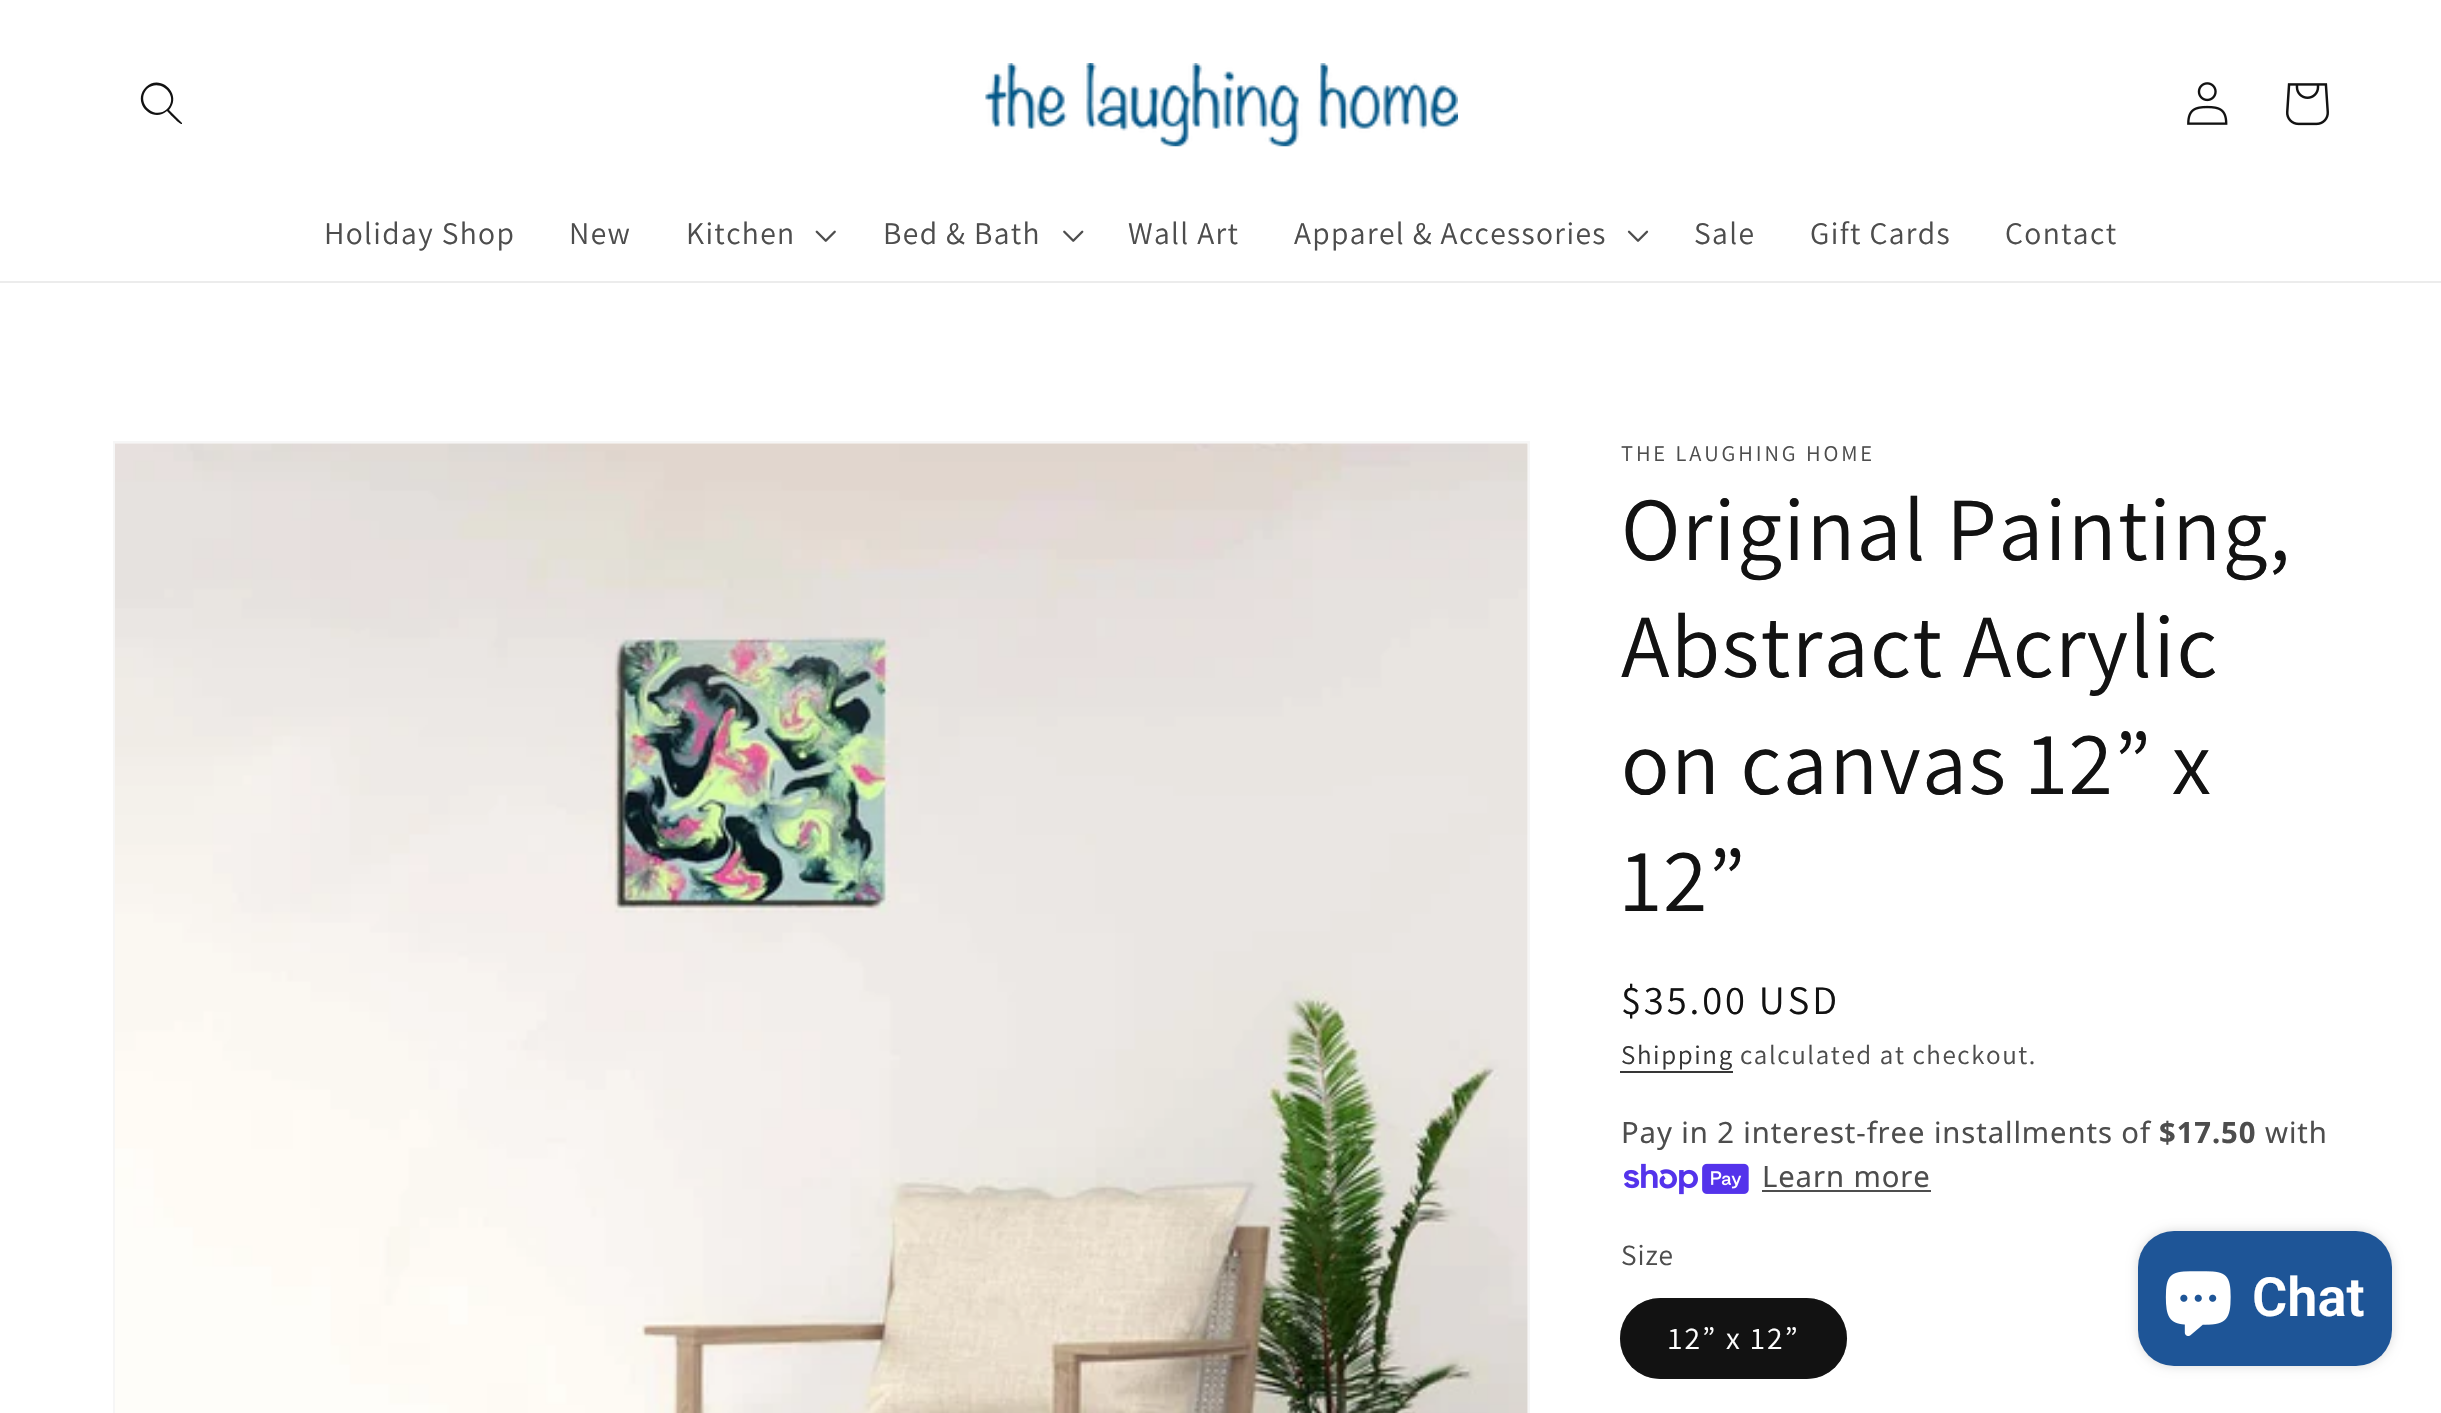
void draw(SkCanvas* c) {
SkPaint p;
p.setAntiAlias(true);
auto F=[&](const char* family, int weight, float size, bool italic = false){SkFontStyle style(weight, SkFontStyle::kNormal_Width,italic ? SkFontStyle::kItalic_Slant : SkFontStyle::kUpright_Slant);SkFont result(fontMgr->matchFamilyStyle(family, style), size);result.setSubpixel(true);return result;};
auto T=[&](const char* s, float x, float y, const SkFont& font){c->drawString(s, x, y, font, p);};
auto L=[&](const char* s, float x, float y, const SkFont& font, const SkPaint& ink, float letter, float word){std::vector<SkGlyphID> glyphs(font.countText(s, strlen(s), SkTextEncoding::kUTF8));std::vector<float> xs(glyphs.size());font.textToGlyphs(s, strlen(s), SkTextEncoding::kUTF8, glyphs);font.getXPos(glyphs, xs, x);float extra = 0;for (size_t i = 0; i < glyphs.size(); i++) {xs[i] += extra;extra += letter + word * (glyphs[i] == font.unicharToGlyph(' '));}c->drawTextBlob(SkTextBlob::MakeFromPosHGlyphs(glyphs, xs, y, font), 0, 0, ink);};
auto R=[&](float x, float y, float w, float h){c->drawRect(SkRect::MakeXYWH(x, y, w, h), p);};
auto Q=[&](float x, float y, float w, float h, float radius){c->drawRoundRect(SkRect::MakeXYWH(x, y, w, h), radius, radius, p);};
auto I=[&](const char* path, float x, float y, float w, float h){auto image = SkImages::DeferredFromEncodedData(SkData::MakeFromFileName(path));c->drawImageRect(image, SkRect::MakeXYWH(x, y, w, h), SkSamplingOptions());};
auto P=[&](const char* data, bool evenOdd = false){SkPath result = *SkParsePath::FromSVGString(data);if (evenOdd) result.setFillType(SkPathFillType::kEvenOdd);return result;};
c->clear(0xffffffff);
p.setColor(0xffececec);
R(0,281,2441,2);
p.setColor(0xff121212);
c->drawPath(P("M167 109c-13 12-32-7-20-20c13-12 33 7 20 20zm0 2c-15 13-36-9-21-24c14-14 37 7 23 23l13 13v1c-2 1-13-11-15-13z",true),p);
I("1.png",985,63,473,84);
I("2.png",2187,82,41,43);
I("3.png",2286,83,43,43);
auto f1 = F("Assistant",400,31.5);
p.setColor(0xff4d4d4d);
L("Holiday Shop",324,244,f1,p,1.35,0);
L("New",569,244,f1,p,1.35,0);
L("Kitchen",686,244,f1,p,1.35,0);
I("4.png",815,230,21,12);
L("Bed & Bath",883,244,f1,p,1.35,0);
I("5.png",1063,230,21,12);
L("Wall Art",1128,244,f1,p,1.35,0);
L("Apparel & Accessories",1294,244,f1,p,1.35,0);
I("6.png",1627,230,22,12);
L("Sale",1694,244,f1,p,1.35,0);
L("Gift Cards",1810,244,f1,p,1.35,0);
L("Contact",2005,244,f1,p,1.35,0);
p.setStroke(true);
p.setStrokeWidth(2);
p.setColor(0xfff6f6f6);
c->drawRect(SkRect::MakeXYWH(114,442,1415,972),p);
I("7.png",115,443,1413,970);
auto f2 = F("Assistant",400,22.5);
p.setStroke(false);
p.setColor(0xff4d4d4d);
L("THE LAUGHING HOME",1621,461,f2,p,2.9,0);
auto f3 = F("Assistant",400,90);
p.setColor(0xff121212);
L("Original Painting,",1621,560,f3,p,1.35,0);
L("Abstract Acrylic",1621,677,f3,p,1.35,0);
L("on canvas 12” x",1621,794,f3,p,1.35,0);
L("12”",1621,911,f3,p,1.35,0);
auto f4 = F("Assistant",400,40.5);
L("$35.00 USD",1621,1014,f4,p,2.9,0);
auto f5 = F("Assistant",400,27);
p.setColor(0xff363636);
L("Shipping",1621,1064,f5,p,1.6,0);
R(1620,1071,113,2);
p.setColor(0xff4d4d4d);
L("calculated at checkout.",1740,1064,f5,p,1.6,0);
auto f6 = F("Noto Sans",400,29.25);
L("Pay in 2 interest-free installments of",1621,1143,f6,p,.9,0);
auto f7 = F("Noto Sans",700,29.25);
L("$17.50",2159,1143,f7,p,.9,0);
L("with",2265,1143,f6,p,.9,0);
I("8.png",1624,1163,125,32);
L("Learn more",1762,1187,f6,p,.9,0);
R(1762,1190,169,2);
auto f8 = F("Assistant",400,29.25);
L("Size",1621,1265,f8,p,.9,0);
p.setColor(0xff121212);
Q(1620,1298,227,81,40.5);
p.setStroke(true);
p.setColor(0x8c121212);
c->drawRoundRect(SkRect::MakeXYWH(1621,1299,225,79),39.5,39.5,p);
p.setStroke(false);
p.setColor(0xffffffff);
L("12” x 12”",1668,1349,f1,p,2.25,0);
p.setColor(0x26000000);
p.setMaskFilter(SkMaskFilter::MakeBlur(kNormal_SkBlurStyle, 5.5));
c->drawRoundRect(SkRect::MakeXYWH(2138,1231,254,135),36,36,p);
p.setMaskFilter(nullptr);
p.setColor(0xff1e5597);
Q(2138,1231,254,135,36);
I("9.png",2165,1271,66,65);
auto f9 = F("Roboto",600,54);
p.setColor(0xffffffff);
T("Chat",2252,1316,f9);
}
